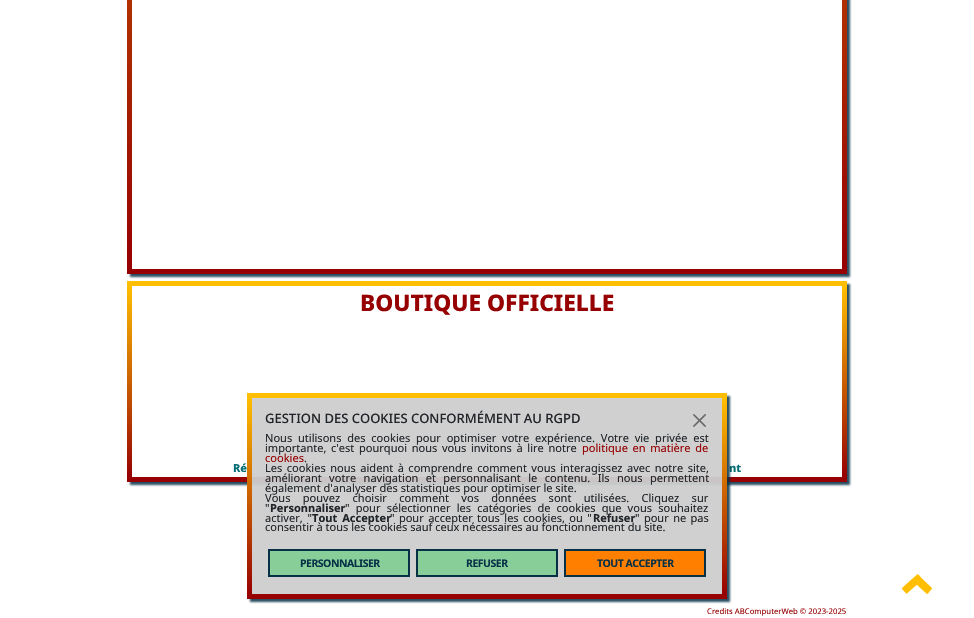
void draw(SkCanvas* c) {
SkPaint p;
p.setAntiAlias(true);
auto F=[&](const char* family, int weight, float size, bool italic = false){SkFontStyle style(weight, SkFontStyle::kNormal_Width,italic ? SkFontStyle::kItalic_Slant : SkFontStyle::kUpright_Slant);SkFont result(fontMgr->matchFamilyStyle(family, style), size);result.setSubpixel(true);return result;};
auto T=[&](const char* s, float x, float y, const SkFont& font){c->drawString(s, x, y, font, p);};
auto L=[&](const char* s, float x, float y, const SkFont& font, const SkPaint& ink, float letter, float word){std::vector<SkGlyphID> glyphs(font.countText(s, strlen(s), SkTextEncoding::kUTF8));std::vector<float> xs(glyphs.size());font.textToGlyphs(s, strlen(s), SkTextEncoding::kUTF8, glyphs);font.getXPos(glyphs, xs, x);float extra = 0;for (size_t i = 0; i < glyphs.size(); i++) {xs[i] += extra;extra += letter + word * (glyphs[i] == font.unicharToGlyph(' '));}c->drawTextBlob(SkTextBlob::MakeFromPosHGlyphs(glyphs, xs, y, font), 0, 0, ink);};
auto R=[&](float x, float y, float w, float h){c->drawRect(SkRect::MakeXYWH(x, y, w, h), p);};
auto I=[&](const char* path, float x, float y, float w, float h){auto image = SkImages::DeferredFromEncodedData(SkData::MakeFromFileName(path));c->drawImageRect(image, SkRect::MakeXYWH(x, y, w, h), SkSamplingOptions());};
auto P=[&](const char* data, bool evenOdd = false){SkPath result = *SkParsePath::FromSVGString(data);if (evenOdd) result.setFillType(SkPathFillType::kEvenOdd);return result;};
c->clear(0xffffffff);
c->save();
c->clipPath(P("M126 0h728v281h-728zm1-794h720v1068h-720z",true),true);
p.setColor(0xd9053046);
p.setMaskFilter(SkMaskFilter::MakeBlur(kNormal_SkBlurStyle, 1));
c->drawRect(SkRect::MakeXYWH(130,-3,720,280),p);
p.setMaskFilter(nullptr);
c->restore();
I("1.png",127,0,720,274);
c->save();
c->clipPath(P("M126 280h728v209h-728zm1 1h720v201h-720z",true),true);
p.setMaskFilter(SkMaskFilter::MakeBlur(kNormal_SkBlurStyle, 1));
c->drawRect(SkRect::MakeXYWH(130,284,720,201),p);
p.setMaskFilter(nullptr);
c->restore();
I("2.png",127,281,720,201);
auto f1 = F("Noto Sans",800,22.75);
p.setColor(0xff960001);
T("BOUTIQUE OFFICIELLE",360,311,f1);
auto f2 = F("Noto Sans",800,11.05);
p.setColor(0xff046e73);
T("Ré",233,472,f2);
T("nt",729,472,f2);
auto f3 = F("Noto Sans",400,7.75);
p.setColor(0xff960001);
T("Credits ABComputerWeb © 2023-2025",707,614,f3);
c->save();
c->clipPath(P("M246 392h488v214h-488zm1 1h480v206h-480z",true),true);
p.setColor(0xd9053046);
p.setMaskFilter(SkMaskFilter::MakeBlur(kNormal_SkBlurStyle, 1));
c->drawRect(SkRect::MakeXYWH(250,396,480,206),p);
p.setMaskFilter(nullptr);
c->restore();
p.setColor(0xf2cdcdcd);
R(252,398,470,196);
I("3.png",247,393,480,206);
auto f4 = F("Noto Sans",500,13);
p.setColor(0xff212529);
T("GESTION DES COOKIES CONFORMÉMENT AU RGPD",265,423,f4);
I("4.png",693,414,13,13);
auto f5 = F("Noto Sans",400,11.05);
L("Nous utilisons des cookies pour optimiser votre expérience. Votre vie privée est",265,442,f5,p,0,2.9);
L("importante, c'est pourquoi nous vous invitons à lire notre",265,452,f5,p,0,1.75);
p.setColor(0xff960001);
L("politique en matière de",582,452,f5,p,0,1.75);
T("cookies",265,462,f5);
p.setColor(0xff212529);
T(".",304,462,f5);
L("Les cookies nous aident à comprendre comment vous interagissez avec notre site,",265,472,f5,p,0,1.6);
L("améliorant votre navigation et personnalisant le contenu. Ils nous permettent",265,482,f5,p,0,4.5);
T("également d'analyser des statistiques pour optimiser le site.",265,492,f5);
L("Vous pouvez choisir comment vos données sont utilisées. Cliquez sur",265,502,f5,p,0,9.5);
T("\"",265,512,f5);
auto f6 = F("Noto Sans",700,11.05);
T("Personnaliser",270,512,f6);
L("\" pour sélectionner les catégories de cookies que vous souhaitez",345,512,f5,p,0,3.25);
L("activer, \"",265,522,f5,p,0,2);
L("Tout Accepter",312,522,f6,p,0,2);
L("\" pour accepter tous les cookies, ou \"",390,522,f5,p,0,1.5);
T("Refuser",593,522,f6);
L("\" pour ne pas",635,522,f5,p,0,1.5);
T("consentir à tous les cookies sauf ceux nécessaires au fonctionnement du site.",265,531,f5);
p.setColor(0xff88ce99);
c->drawRect(SkRect::MakeXYWH(269,550,140,26),p);
p.setStroke(true);
p.setStrokeWidth(2);
p.setColor(0xff053046);
c->drawRect(SkRect::MakeXYWH(269,550,140,26),p);
auto f7 = F("Noto Sans",700,10.5);
p.setStroke(false);
L("PERSONNALISER",300,567,f7,p,-.5,0);
p.setColor(0xff88ce99);
c->drawRect(SkRect::MakeXYWH(417,550,140,26),p);
p.setStroke(true);
p.setColor(0xff053046);
c->drawRect(SkRect::MakeXYWH(417,550,140,26),p);
p.setStroke(false);
L("REFUSER",466,567,f7,p,-.5,0);
p.setColor(0xffff8001);
c->drawRect(SkRect::MakeXYWH(565,550,140,26),p);
p.setStroke(true);
p.setColor(0xff053046);
c->drawRect(SkRect::MakeXYWH(565,550,140,26),p);
p.setStroke(false);
L("TOUT ACCEPTER",597,567,f7,p,-.5,0);
I("5.png",902,574,30,20);
}
